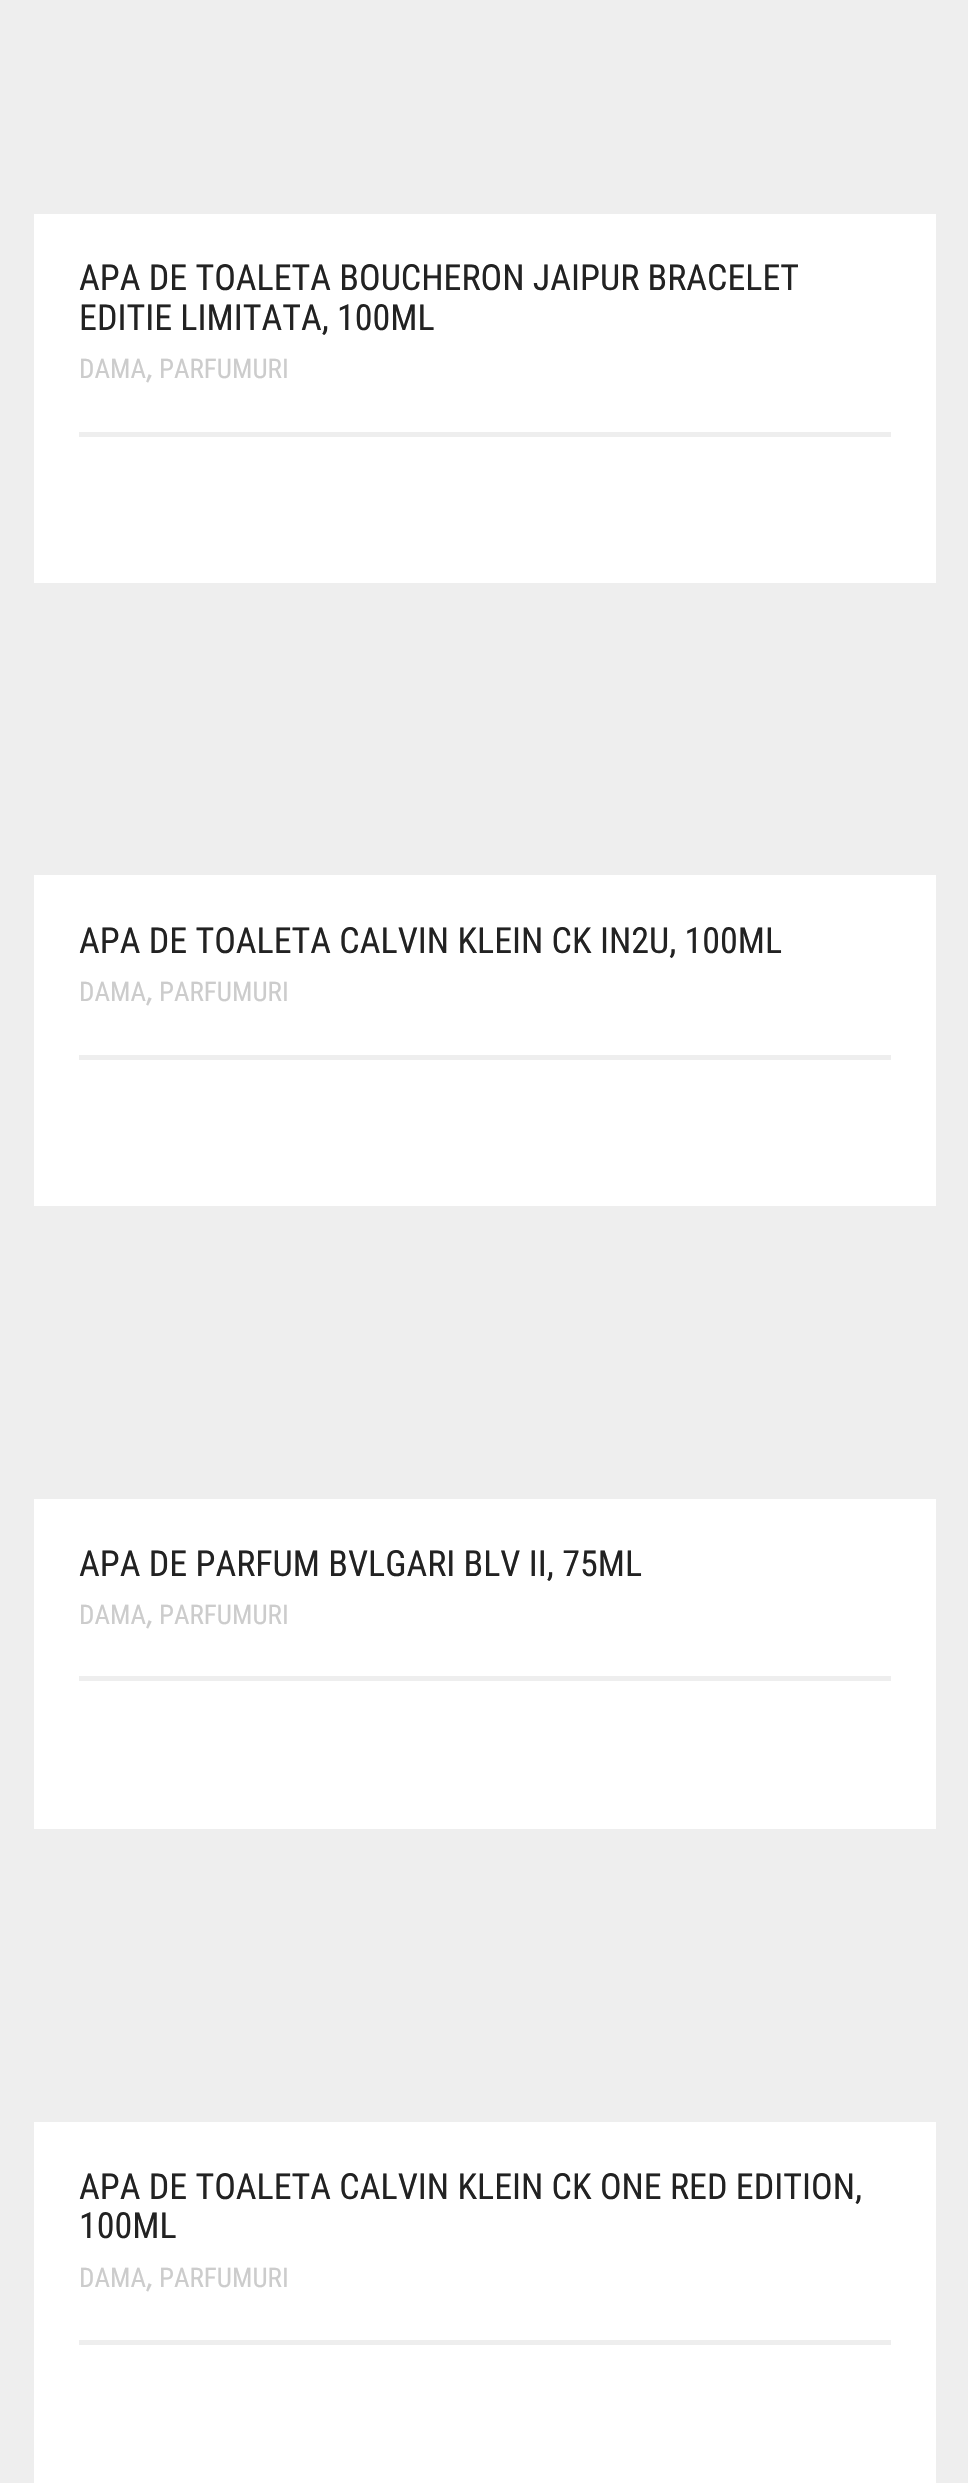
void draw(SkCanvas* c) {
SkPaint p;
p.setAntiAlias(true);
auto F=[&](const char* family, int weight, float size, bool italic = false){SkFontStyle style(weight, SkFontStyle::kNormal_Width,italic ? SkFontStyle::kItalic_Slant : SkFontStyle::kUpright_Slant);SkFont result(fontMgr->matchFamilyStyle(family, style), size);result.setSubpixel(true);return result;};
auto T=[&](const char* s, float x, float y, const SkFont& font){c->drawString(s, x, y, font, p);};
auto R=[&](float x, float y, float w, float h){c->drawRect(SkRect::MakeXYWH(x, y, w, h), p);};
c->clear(0xffeeeeee);
p.setColor(0xffffffff);
R(34,214,902,369);
auto f1 = F("Roboto Condensed",400,36);
p.setColor(0xff222222);
T("APA DE TOALETA BOUCHERON JAIPUR BRACELET",79,290,f1);
T("EDITIE LIMITATA, 100ML",79,330,f1);
auto f2 = F("Roboto Condensed",400,27);
p.setColor(0xffcccccc);
T("DAMA",79,378,f2);
auto f3 = F("Arvo",400,27);
T(",",146,378,f3);
T("PARFUMURI",159,378,f2);
p.setColor(0xffeeeeee);
R(79,432,812,5);
p.setColor(0xffffffff);
R(34,875,902,331);
p.setColor(0xff222222);
T("APA DE TOALETA CALVIN KLEIN CK IN2U, 100ML",79,953,f1);
p.setColor(0xffcccccc);
T("DAMA",79,1001,f2);
T(",",146,1001,f3);
T("PARFUMURI",159,1001,f2);
p.setColor(0xffeeeeee);
R(79,1055,812,5);
p.setColor(0xffffffff);
R(34,1499,902,330);
p.setColor(0xff222222);
T("APA DE PARFUM BVLGARI BLV II, 75ML",79,1576,f1);
p.setColor(0xffcccccc);
T("DAMA",79,1624,f2);
T(",",146,1624,f3);
T("PARFUMURI",159,1624,f2);
p.setColor(0xffeeeeee);
R(79,1676,812,5);
p.setColor(0xffffffff);
R(34,2122,902,361);
p.setColor(0xff222222);
T("APA DE TOALETA CALVIN KLEIN CK ONE RED EDITION,",79,2199,f1);
T("100ML",79,2238,f1);
p.setColor(0xffcccccc);
T("DAMA",79,2287,f2);
T(",",146,2287,f3);
T("PARFUMURI",159,2287,f2);
p.setColor(0xffeeeeee);
R(79,2340,812,5);
}
